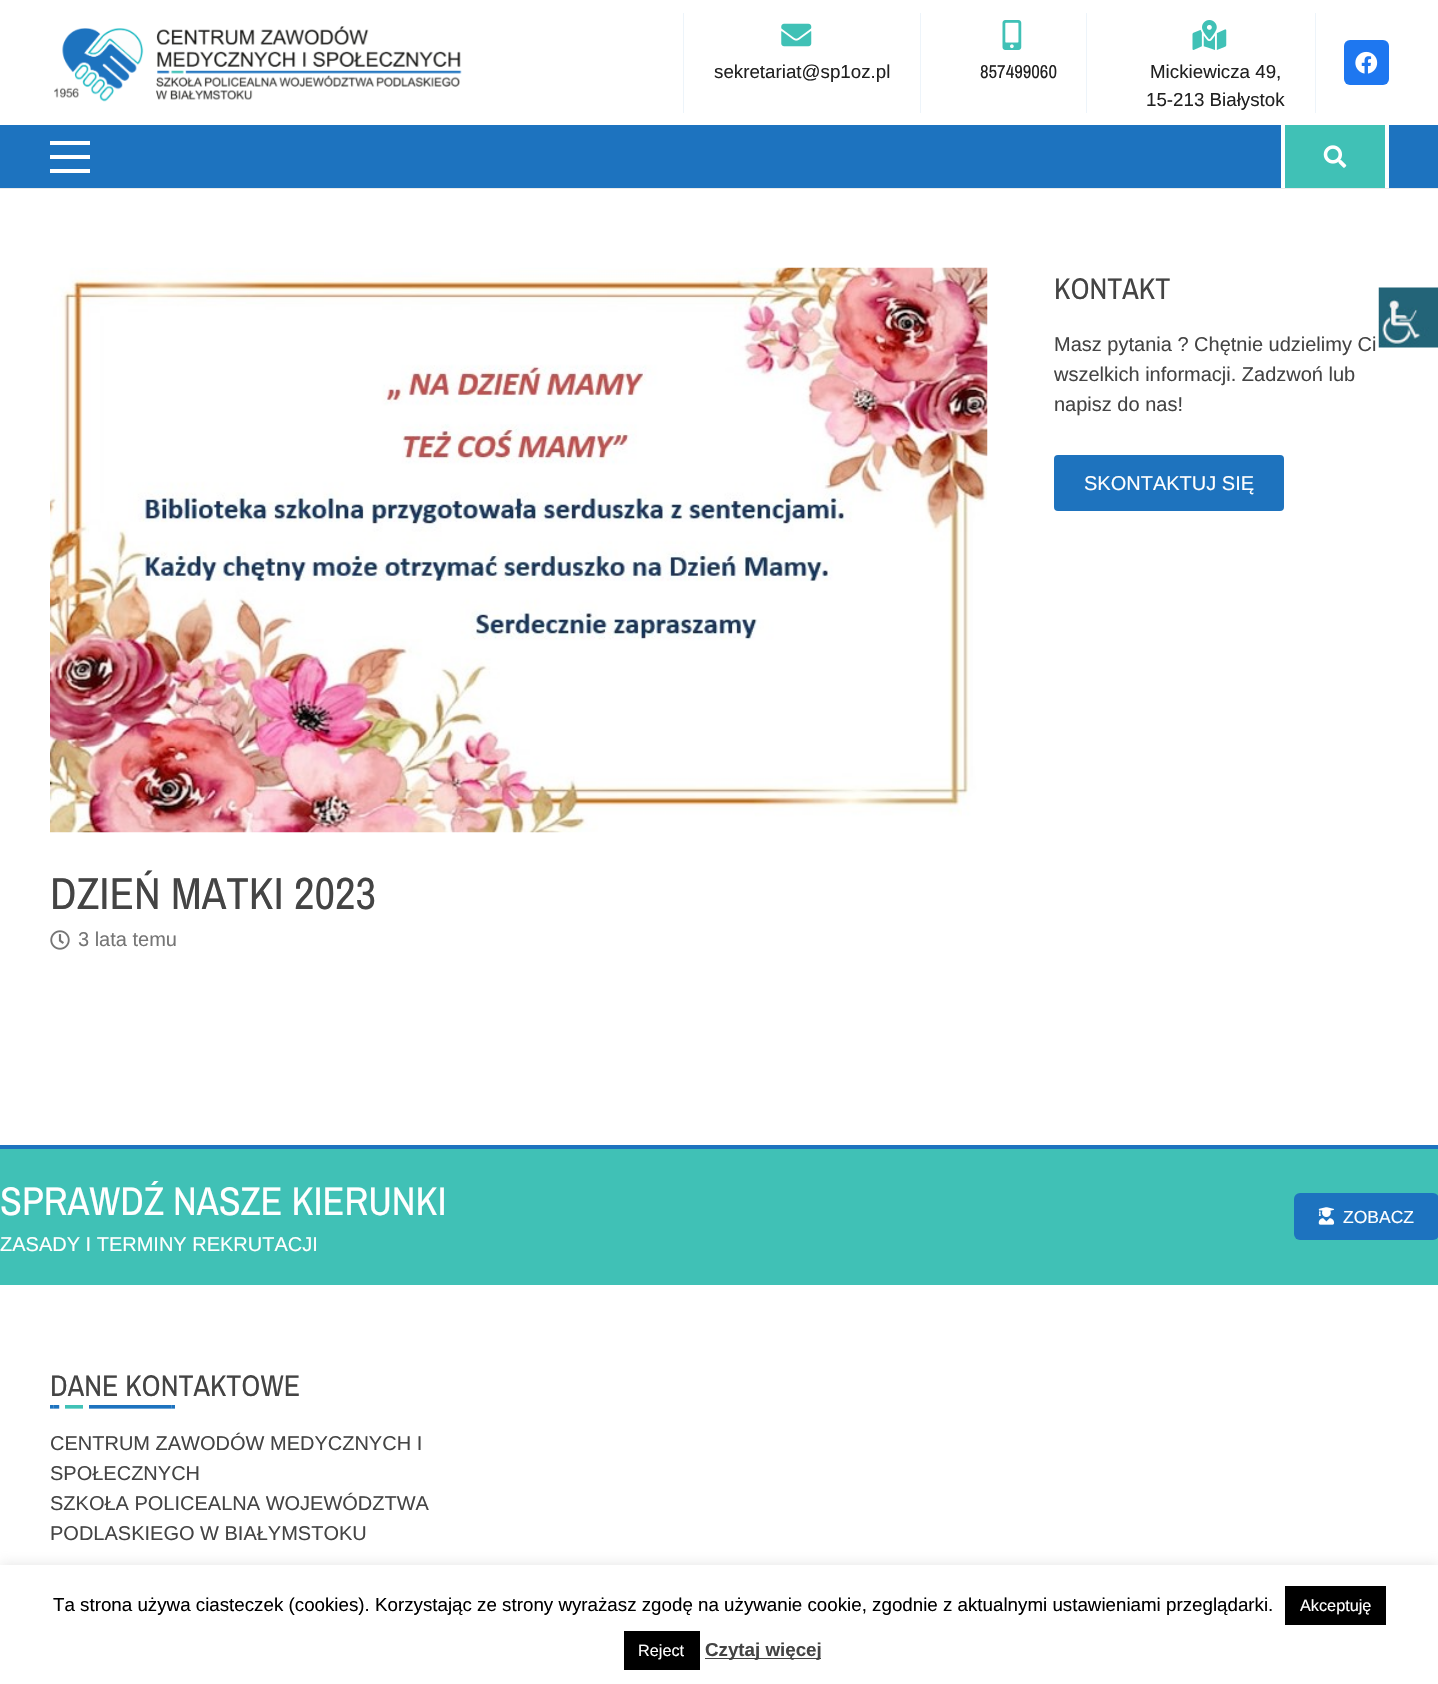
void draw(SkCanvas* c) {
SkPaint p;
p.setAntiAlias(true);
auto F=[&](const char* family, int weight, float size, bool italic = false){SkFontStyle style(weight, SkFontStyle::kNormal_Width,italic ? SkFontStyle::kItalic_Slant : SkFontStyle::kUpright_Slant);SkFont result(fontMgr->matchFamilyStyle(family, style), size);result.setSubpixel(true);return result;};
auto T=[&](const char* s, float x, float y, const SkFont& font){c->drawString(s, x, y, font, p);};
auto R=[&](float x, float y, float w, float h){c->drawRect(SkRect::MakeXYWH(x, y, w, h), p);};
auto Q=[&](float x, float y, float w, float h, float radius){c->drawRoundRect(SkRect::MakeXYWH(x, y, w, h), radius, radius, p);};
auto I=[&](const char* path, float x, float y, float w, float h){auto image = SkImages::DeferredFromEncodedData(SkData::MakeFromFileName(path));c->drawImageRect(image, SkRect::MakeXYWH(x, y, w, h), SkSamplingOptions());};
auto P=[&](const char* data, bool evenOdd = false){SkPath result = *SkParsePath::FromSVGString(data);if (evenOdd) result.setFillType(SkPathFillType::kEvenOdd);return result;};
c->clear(0xffffffff);
I("1.png",54,26,408,76);
p.setColor(0xffedf4fa);
R(920,13,1,100);
R(683,13,1,100);
I("2.png",781,23,31,24);
auto f1 = F("Liberation Sans",400,18.75);
p.setColor(0xff212121);
T("sekretariat@sp1oz.pl",714,78,f1);
p.setColor(0xffedf4fa);
R(1086,13,1,100);
I("3.png",1002,20,20,30);
auto f2 = F("Archivo Narrow",400,18.75);
p.setColor(0xff212121);
T("857499060",980,78,f2);
p.setColor(0xffedf4fa);
R(1315,13,1,100);
I("4.png",1192,20,35,30);
p.setColor(0xff212121);
T("Mickiewicza 49,",1150,78,f1);
T("15-213 Białystok",1146,106,f1);
p.setColor(0xff1e77f0);
Q(1344,40,45,45,6);
I("5.png",1355,51,23,23);
p.setColor(0xffebebeb);
c->drawPath(P("M0 188v1h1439v-63v62z"),p);
p.setColor(0xff1d73bf);
R(0,125,1438,63);
p.setColor(0xffffffff);
R(50,155,40,4);
R(50,141,40,4);
R(50,169,40,4);
p.setColor(0xff40c1b6);
R(1285,125,100,63);
p.setColor(0xffffffff);
R(1385,125,4,63);
R(1281,125,4,63);
I("6.png",1323,145,24,23);
auto f3 = F("Archivo Narrow",400,30);
p.setColor(0xff444444);
T("KONTAKT",1054,299,f3);
auto f4 = F("Liberation Sans",400,20);
T("Masz pytania ? Chętnie udzielimy Ci",1054,351,f4);
T("wszelkich informacji. Zadzwoń lub",1054,381,f4);
T("napisz do nas!",1054,411,f4);
p.setColor(0xff1e73be);
Q(1054,455,230,56,4);
p.setColor(0xffffffff);
T("SKONTAKTUJ SIĘ",1084,490,f4);
I("7.png",50,267,938,566);
auto f5 = F("Archivo Narrow",400,45);
p.setColor(0xff444444);
T("DZIEŃ MATKI 2023",50,909,f5);
I("8.png",50,930,20,20);
p.setColor(0xff757575);
T("3 lata temu",78,946,f4);
I("9.png",1378,287,60,61);
p.setColor(0xff40c1b6);
R(0,1149,1438,136);
p.setColor(0xff1d73bf);
R(0,1145,1438,4);
auto f6 = F("Archivo Narrow",400,40);
p.setColor(0xffffffff);
T("SPRAWDŹ NASZE KIERUNKI",0,1215,f6);
T("ZASADY I TERMINY REKRUTACJI",0,1251,f4);
p.setColor(0xff1d73bf);
Q(1294,1193,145,47,6);
I("10.png",1318,1207,17,18);
auto f7 = F("Liberation Sans",400,17.5);
p.setColor(0xffffffff);
T("ZOBACZ",1343,1223,f7);
p.setColor(0xff444444);
T("DANE KONTAKTOWE",50,1396,f3);
I("11.png",50,1405,125,4);
T("CENTRUM ZAWODÓW MEDYCZNYCH I",50,1450,f4);
T("SPOŁECZNYCH",50,1480,f4);
T("SZKOŁA POLICEALNA WOJEWÓDZTWA",50,1510,f4);
T("PODLASKIEGO W BIAŁYMSTOKU",50,1540,f4);
p.setColor(0x4dacabab);
p.setMaskFilter(SkMaskFilter::MakeBlur(kNormal_SkBlurStyle, 6));
c->drawRect(SkRect::MakeXYWH(0,1564,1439,120),p);
p.setMaskFilter(nullptr);
p.setColor(0xffffffff);
R(0,1565,1438,119);
p.setColor(0xff000000);
T("Ta strona używa ciasteczek (cookies). Korzystając ze strony wyrażasz zgodę na używanie cookie, zgodnie z aktualnymi ustawieniami przeglądarki.",53,1611,f1);
R(1285,1586,101,39);
auto f8 = F("Liberation Sans",400,16.25);
p.setColor(0xffffffff);
T("Akceptuję",1300,1611,f8);
p.setColor(0xff000000);
R(624,1631,76,39);
p.setColor(0xffffffff);
T("Reject",638,1656,f8);
p.setColor(0xff444444);
R(705,1658,116,1);
auto f9 = F("Liberation Sans",700,18.75);
T("Czytaj więcej",705,1656,f9);
}
